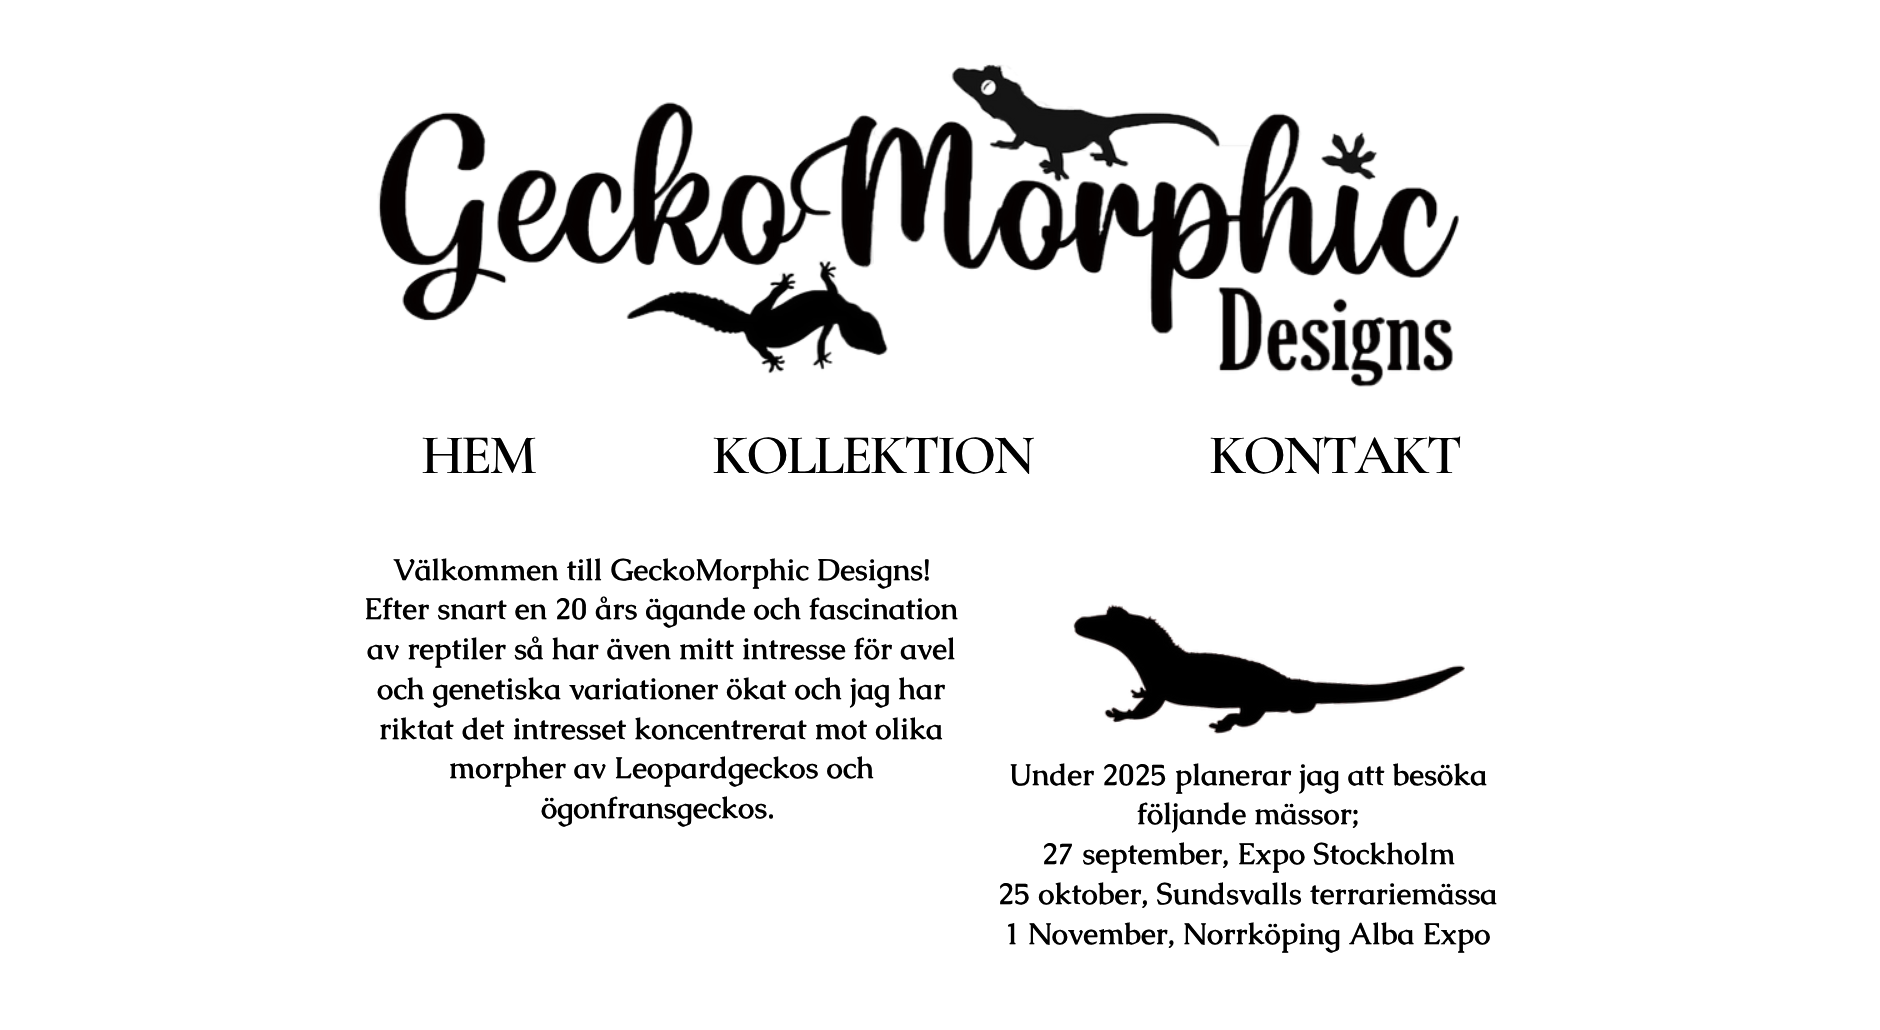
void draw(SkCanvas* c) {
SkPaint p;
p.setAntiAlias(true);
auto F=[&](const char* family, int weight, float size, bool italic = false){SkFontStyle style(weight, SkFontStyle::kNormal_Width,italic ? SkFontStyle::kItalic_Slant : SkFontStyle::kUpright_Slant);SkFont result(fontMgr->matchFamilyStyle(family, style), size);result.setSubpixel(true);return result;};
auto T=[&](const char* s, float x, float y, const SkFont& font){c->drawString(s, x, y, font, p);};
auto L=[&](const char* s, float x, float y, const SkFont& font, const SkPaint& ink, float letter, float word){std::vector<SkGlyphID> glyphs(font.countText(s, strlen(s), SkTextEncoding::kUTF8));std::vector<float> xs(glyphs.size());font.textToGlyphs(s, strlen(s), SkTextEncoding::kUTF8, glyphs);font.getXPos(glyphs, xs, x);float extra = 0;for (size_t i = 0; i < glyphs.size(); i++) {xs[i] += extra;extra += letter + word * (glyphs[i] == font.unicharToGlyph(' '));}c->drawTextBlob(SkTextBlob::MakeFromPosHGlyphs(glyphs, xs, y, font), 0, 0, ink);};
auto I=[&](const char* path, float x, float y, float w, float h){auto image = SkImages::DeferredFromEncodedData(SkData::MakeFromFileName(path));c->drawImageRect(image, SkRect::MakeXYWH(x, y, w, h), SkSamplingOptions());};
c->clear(0xffffffff);
I("1.png",377,64,1082,323);
auto f1 = F("Cormorant Garamond",600,56.25);
p.setColor(0xff000000);
L("HEM",421,473,f1,p,-2.75,0);
L("KOLLEKTION",712,473,f1,p,-2.75,0);
L("KONTAKT",1209,473,f1,p,-2.75,0);
auto f2 = F("Caudex",700,30);
T("Välkommen till GeckoMorphic Designs!",393,580,f2);
T("Efter snart en 20 års ägande och fascination",364,619,f2);
T("av reptiler så har även mitt intresse för avel",367,659,f2);
T("och genetiska variationer ökat och jag har",377,699,f2);
T("riktat det intresset koncentrerat mot olika",379,739,f2);
T("morpher av Leopardgeckos och",449,778,f2);
T("ögonfransgeckos.",541,818,f2);
I("2.png",1073,604,392,130);
T("Under 2025 planerar jag att besöka",1009,785,f2);
T("följande mässor;",1137,824,f2);
T("27 september, Expo Stockholm",1042,864,f2);
T("25 oktober, Sundsvalls terrariemässa",998,904,f2);
T("1 November, Norrköping Alba Expo",1005,944,f2);
}
